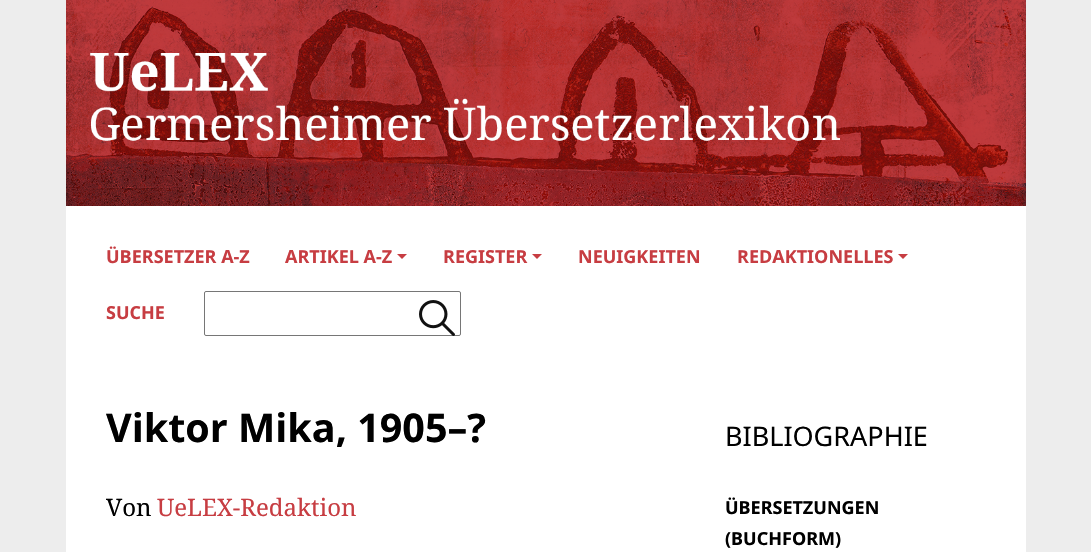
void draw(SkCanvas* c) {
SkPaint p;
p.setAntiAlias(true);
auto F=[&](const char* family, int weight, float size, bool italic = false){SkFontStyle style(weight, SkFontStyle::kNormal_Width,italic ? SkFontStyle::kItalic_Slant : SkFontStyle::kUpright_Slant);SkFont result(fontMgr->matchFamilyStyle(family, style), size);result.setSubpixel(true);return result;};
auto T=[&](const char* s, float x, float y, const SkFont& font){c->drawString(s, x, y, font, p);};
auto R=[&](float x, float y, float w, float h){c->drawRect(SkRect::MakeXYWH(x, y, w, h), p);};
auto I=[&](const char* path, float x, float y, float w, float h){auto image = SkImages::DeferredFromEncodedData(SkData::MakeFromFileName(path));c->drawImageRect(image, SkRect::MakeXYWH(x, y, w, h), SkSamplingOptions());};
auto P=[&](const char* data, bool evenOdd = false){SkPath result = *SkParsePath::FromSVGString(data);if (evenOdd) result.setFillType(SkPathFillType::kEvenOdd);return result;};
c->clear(0xffededed);
p.setColor(0xffffffff);
R(66,206,960,346);
I("1.png",66,0,960,206);
auto f1 = F("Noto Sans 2",700,18);
p.setColor(0xffc73d42);
T("ÜBERSETZER A-Z",106,263,f1);
T("ARTIKEL A-Z",285,263,f1);
c->drawPath(P("M397 254h10l-5 5z"),p);
T("REGISTER",443,263,f1);
c->drawPath(P("M532 254h10l-5 5z"),p);
T("NEUIGKEITEN",578,263,f1);
T("REDAKTIONELLES",737,263,f1);
c->drawPath(P("M898 254h10l-5 5z"),p);
T("SUCHE",106,319,f1);
p.setStroke(true);
p.setStrokeWidth(1);
p.setColor(0xff767676);
c->drawRoundRect(SkRect::MakeXYWH(204.5,291.5,256,44),1.5,1.5,p);
I("2.png",419,300,36,36);
auto f2 = F("Noto Sans 2",700,39.5);
p.setStroke(false);
p.setColor(0xff000000);
T("Viktor Mika, 1905–?",106,442,f2);
auto f3 = F("Noto Serif",400,24);
T("Von",106,516,f3);
p.setColor(0xffc73d42);
T("UeLEX-Redaktion",157,516,f3);
auto f4 = F("Noto Sans",400,27);
p.setColor(0xff000000);
T("BIBLIOGRAPHIE",725,446,f4);
auto f5 = F("Noto Sans",700,18);
T("ÜBERSETZUNGEN",725,514,f5);
T("(BUCHFORM)",725,545,f5);
}
